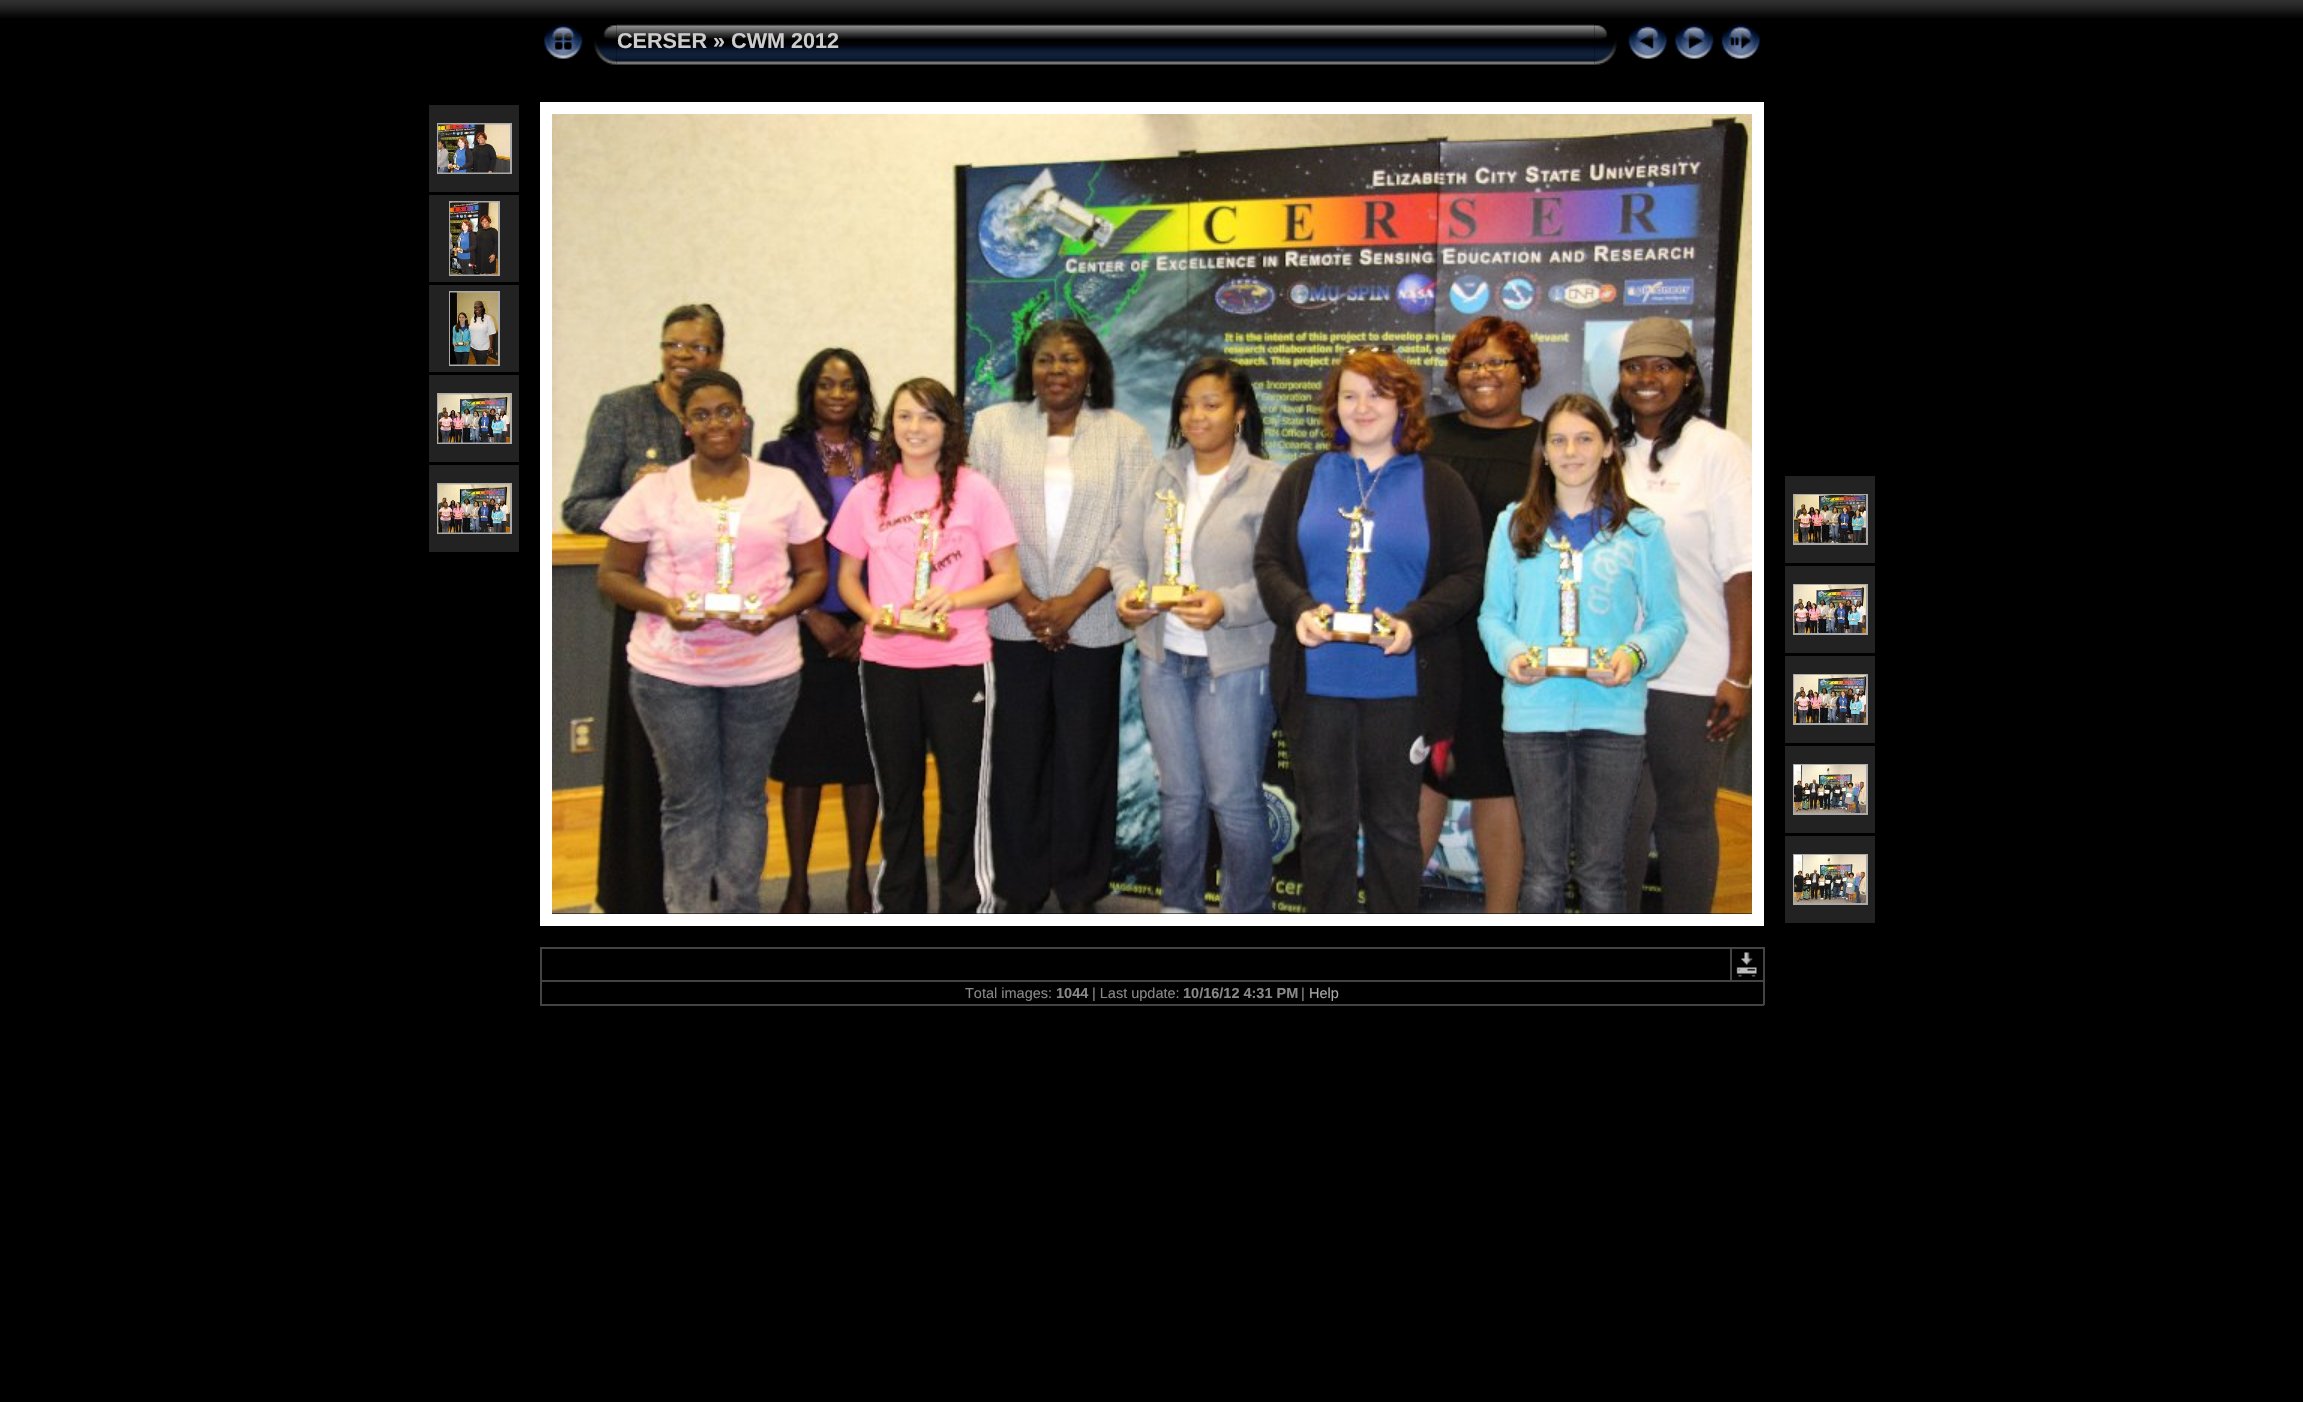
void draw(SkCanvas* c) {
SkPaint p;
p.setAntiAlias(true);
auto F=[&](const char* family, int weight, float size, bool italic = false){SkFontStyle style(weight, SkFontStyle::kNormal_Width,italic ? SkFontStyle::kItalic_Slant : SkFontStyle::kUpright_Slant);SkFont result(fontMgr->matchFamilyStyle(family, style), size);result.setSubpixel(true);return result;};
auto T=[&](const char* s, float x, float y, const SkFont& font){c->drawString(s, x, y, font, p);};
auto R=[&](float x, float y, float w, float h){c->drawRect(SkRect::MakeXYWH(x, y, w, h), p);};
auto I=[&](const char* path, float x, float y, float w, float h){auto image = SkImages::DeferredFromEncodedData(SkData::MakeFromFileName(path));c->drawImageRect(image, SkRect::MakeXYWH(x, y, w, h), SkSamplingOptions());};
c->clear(0xff000000);
I("1.png",0,0,2303,18);
I("2.png",544,24,39,35);
I("4.png",616,24,979,41);
I("3.png",594,25,23,40);
auto f1 = F("Liberation Sans",700,21.6);
p.setColor(0xffcccccc);
T("CERSER » CWM 2012",617,48,f1);
I("5.png",1594,24,23,41);
I("6.png",1628,24,39,35);
I("7.png",1675,24,39,35);
I("8.png",1721,24,39,35);
p.setColor(0xff222222);
R(429,105,90,87);
p.setStroke(true);
p.setStrokeWidth(2);
p.setColor(0xffaaaaaa);
c->drawRect(SkRect::MakeXYWH(438,124,73,49),p);
I("9.png",438,124,72,49);
p.setStroke(false);
p.setColor(0xff222222);
R(429,195,90,87);
p.setStroke(true);
p.setColor(0xffaaaaaa);
c->drawRect(SkRect::MakeXYWH(450,202,49,73),p);
I("10.png",450,202,48,73);
p.setStroke(false);
p.setColor(0xff222222);
R(429,285,90,87);
p.setStroke(true);
p.setColor(0xffaaaaaa);
c->drawRect(SkRect::MakeXYWH(450,292,49,73),p);
I("11.png",450,292,48,73);
p.setStroke(false);
p.setColor(0xff222222);
R(429,375,90,87);
p.setStroke(true);
p.setColor(0xffaaaaaa);
c->drawRect(SkRect::MakeXYWH(438,394,73,49),p);
I("12.png",438,394,72,49);
p.setStroke(false);
p.setColor(0xff222222);
R(429,465,90,87);
p.setStroke(true);
p.setColor(0xffaaaaaa);
c->drawRect(SkRect::MakeXYWH(438,484,73,49),p);
I("13.png",438,484,72,49);
p.setStrokeWidth(12);
p.setColor(0xffffffff);
c->drawRect(SkRect::MakeXYWH(546,108,1212,812),p);
I("14.png",552,114,1200,800);
p.setStroke(false);
p.setColor(0xff222222);
R(1785,476,90,87);
p.setStroke(true);
p.setStrokeWidth(2);
p.setColor(0xffaaaaaa);
c->drawRect(SkRect::MakeXYWH(1794,495,73,49),p);
I("15.png",1794,495,72,48);
p.setStroke(false);
p.setColor(0xff222222);
R(1785,566,90,87);
p.setStroke(true);
p.setColor(0xffaaaaaa);
c->drawRect(SkRect::MakeXYWH(1794,585,73,49),p);
I("16.png",1794,585,72,48);
p.setStroke(false);
p.setColor(0xff222222);
R(1785,656,90,87);
p.setStroke(true);
p.setColor(0xffaaaaaa);
c->drawRect(SkRect::MakeXYWH(1794,675,73,49),p);
I("17.png",1794,675,72,48);
p.setStroke(false);
p.setColor(0xff222222);
R(1785,746,90,87);
p.setStroke(true);
p.setColor(0xffaaaaaa);
c->drawRect(SkRect::MakeXYWH(1794,765,73,49),p);
I("18.png",1794,765,72,48);
p.setStroke(false);
p.setColor(0xff222222);
R(1785,836,90,87);
p.setStroke(true);
p.setColor(0xffaaaaaa);
c->drawRect(SkRect::MakeXYWH(1794,855,73,49),p);
I("19.png",1794,855,72,48);
p.setStroke(false);
p.setColor(0xff444444);
R(540,947,1224,2);
R(1763,947,2,58);
R(540,1004,1224,2);
R(540,947,2,58);
R(540,980,1224,2);
R(1730,947,2,34);
I("20.png",1736,952,21,25);
auto f2 = F("Liberation Sans",400,14.5);
p.setColor(0xff888888);
T("Total images:",965,998,f2);
auto f3 = F("Liberation Sans",700,14.5);
T("1044",1056,998,f3);
T("| Last update:",1092,998,f2);
T("10/16/12 4:31 PM",1183,998,f3);
T("|",1301,998,f2);
p.setColor(0xffaaaaaa);
T("Help",1309,998,f2);
}
